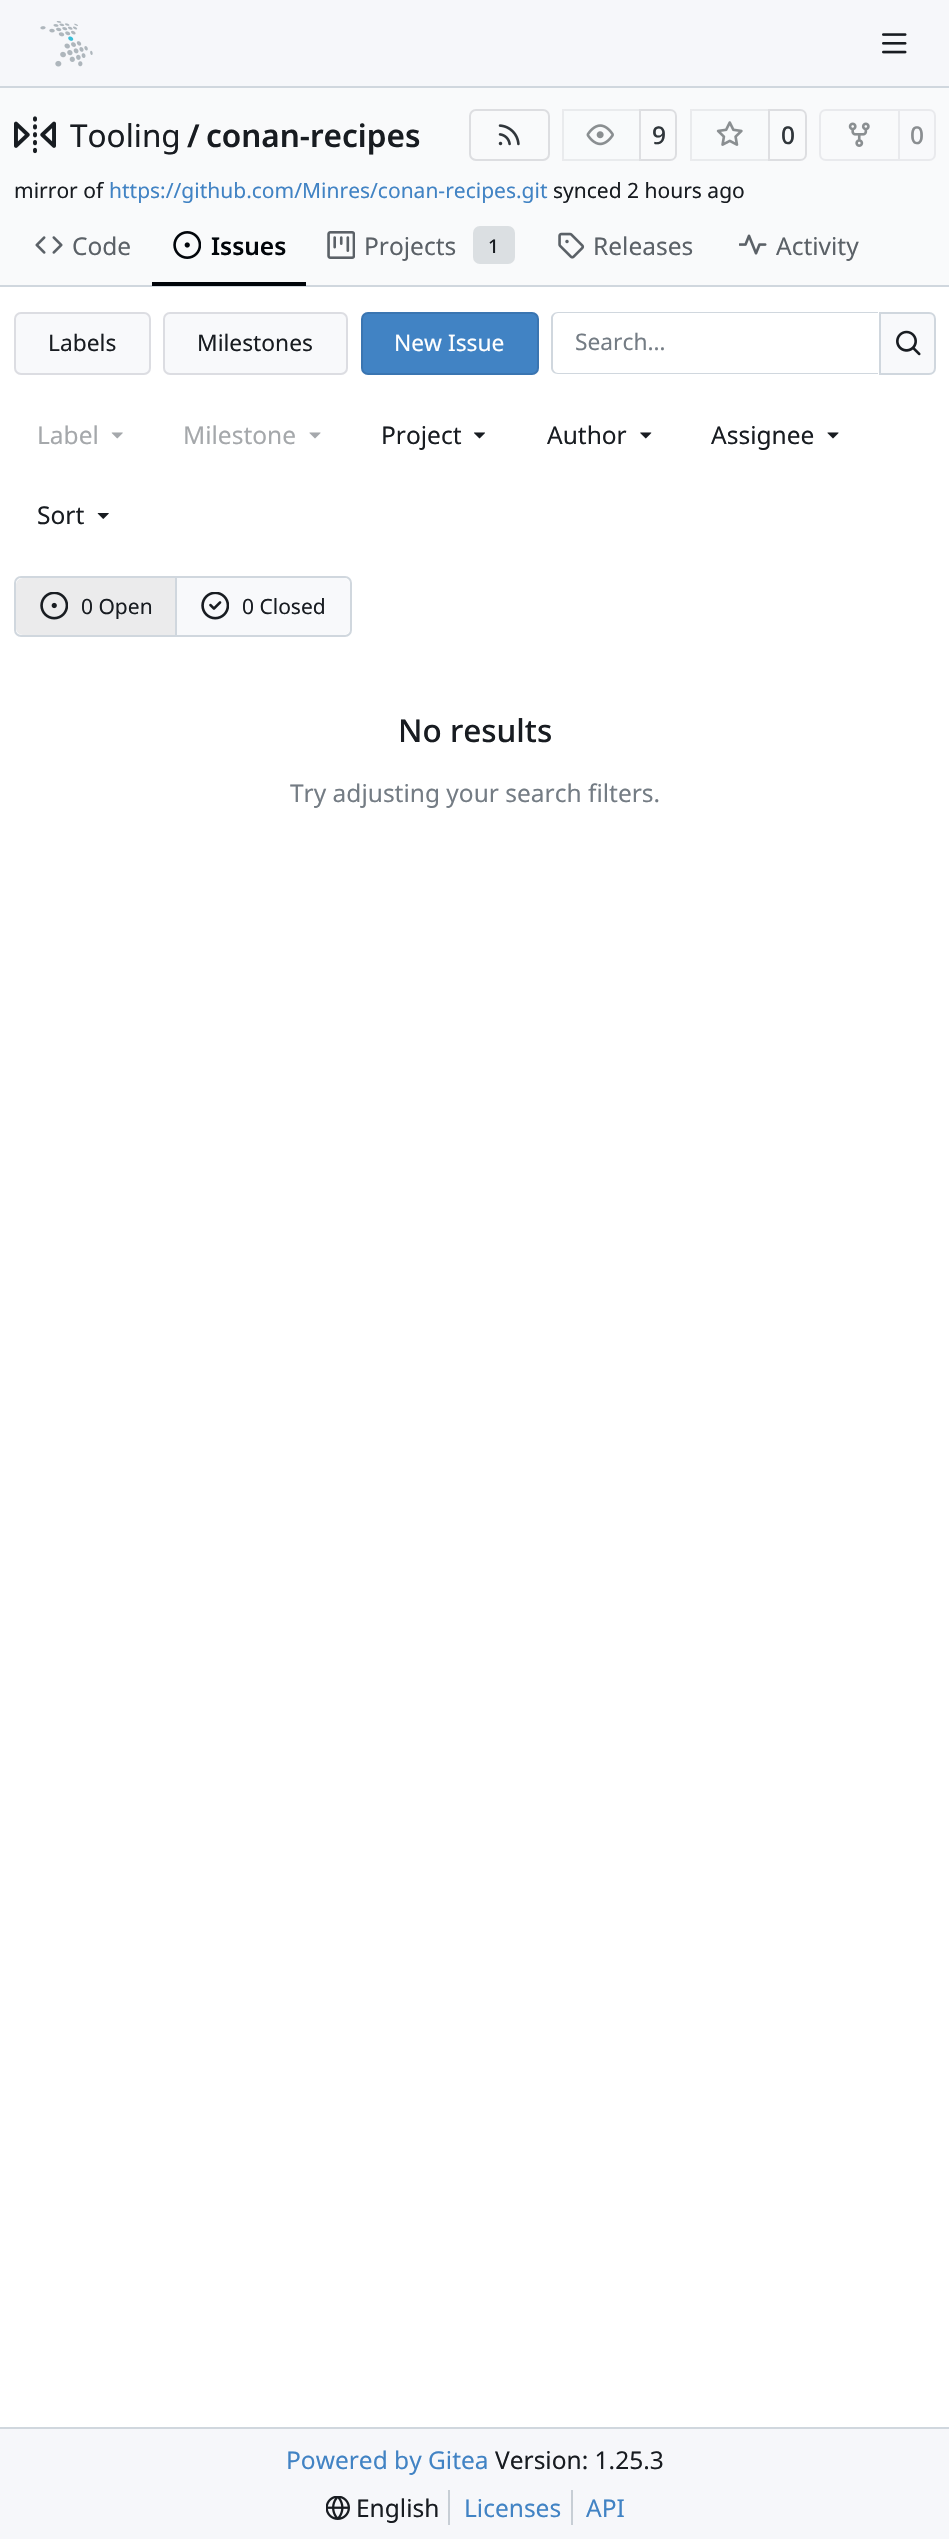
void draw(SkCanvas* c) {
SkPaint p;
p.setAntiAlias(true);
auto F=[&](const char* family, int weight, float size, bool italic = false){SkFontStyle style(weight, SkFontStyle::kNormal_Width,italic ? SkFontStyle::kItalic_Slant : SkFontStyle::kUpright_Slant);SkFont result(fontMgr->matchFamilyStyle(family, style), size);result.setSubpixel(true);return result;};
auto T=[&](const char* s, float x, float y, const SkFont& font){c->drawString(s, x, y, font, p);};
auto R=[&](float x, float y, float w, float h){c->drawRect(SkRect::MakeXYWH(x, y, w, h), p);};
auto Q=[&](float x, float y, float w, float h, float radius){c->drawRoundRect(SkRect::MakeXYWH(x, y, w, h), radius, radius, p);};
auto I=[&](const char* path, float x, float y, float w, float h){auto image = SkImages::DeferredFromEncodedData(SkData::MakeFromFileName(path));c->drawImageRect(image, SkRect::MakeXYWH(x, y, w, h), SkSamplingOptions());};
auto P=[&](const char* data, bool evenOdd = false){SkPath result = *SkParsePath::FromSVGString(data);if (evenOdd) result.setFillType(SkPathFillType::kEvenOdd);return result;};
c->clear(0xffffffff);
p.setColor(0xfff6f7fa);
R(0,0,949,86);
p.setColor(0xffd0d7de);
R(0,86,949,2);
I("1.png",40,21,53,46);
I("2.png",882,33,25,21);
p.setColor(0xfff9fafb);
R(0,88,949,197);
I("3.png",14,116,42,38);
auto f1 = F("Noto Sans",400,31.5);
p.setColor(0xff181c21);
T("Tooling",70,147,f1);
auto f2 = F("Noto Sans",600,31.5);
T("/",187,147,f2);
T("conan-recipes",206,147,f2);
p.setStroke(true);
p.setStrokeWidth(2);
p.setColor(0xffdddee1);
c->drawRoundRect(SkRect::MakeXYWH(470,110,79,50),6,6,p);
I("4.png",498,124,22,22);
c->drawPath(P("M640 110h30c3.5 0 6 2.5 6 6v38c0 3.5-2.5 6-6 6h-30z"),p);
p.setStroke(false);
p.setColor(0x8cf8f9fb);
c->drawPath(P("M569 109h72v52h-72c-4 0-7-3-7-7v-38c0-4 3-7 7-7z"),p);
p.setStroke(true);
p.setColor(0x0f000017);
c->drawRect(SkRect::MakeXYWH(563,110,77,50),p);
I("5.png",586,124,28,22);
auto f3 = F("Noto Sans",500,24.5);
p.setStroke(false);
p.setColor(0xff30363b);
T("9",652,144,f3);
p.setStroke(true);
p.setColor(0xffdddee1);
c->drawPath(P("M769 110h31c3.5 0 6 2.5 6 6v38c0 3.5-2.5 6-6 6h-31z"),p);
p.setStroke(false);
p.setColor(0x8cf8f9fb);
c->drawPath(P("M697 109h73v52h-73c-4 0-7-3-7-7v-38c0-4 3-7 7-7z"),p);
p.setStroke(true);
p.setColor(0x0f000017);
c->drawRect(SkRect::MakeXYWH(691,110,78,50),p);
I("6.png",716,121,27,25);
p.setStroke(false);
p.setColor(0xff30363b);
T("0",781,144,f3);
p.setStroke(true);
p.setColor(0xffe9eaed);
c->drawPath(P("M826 110h73v50h-73c-3.5 0-6-2.5-6-6v-38c0-3.5 2.5-6 6-6z"),p);
I("7.png",848,122,22,25);
p.setStroke(false);
p.setColor(0xfff8f9fb);
c->drawPath(P("M899 110h30c3.5 0 6 2.5 6 6v38c0 3.5-2.5 6-6 6h-30z"),p);
p.setStroke(true);
p.setColor(0xffe9eaed);
c->drawPath(P("M899 110h30c3.5 0 6 2.5 6 6v38c0 3.5-2.5 6-6 6h-30z"),p);
p.setStroke(false);
p.setColor(0xff8a8e91);
T("0",910,144,f3);
auto f4 = F("Noto Sans",400,21);
p.setColor(0xff181c21);
T("mirror of",14,198,f4);
p.setColor(0xff4183c4);
T("https://github.com/Minres/conan-recipes.git",109,198,f4);
p.setColor(0xff181c21);
T("synced 2 hours ago",553,198,f4);
I("8.png",35,236,28,18);
auto f5 = F("Noto Sans",400,24.5);
p.setColor(0xff5b6167);
T("Code",72,255,f5);
p.setColor(0xffd0d7de);
R(0,285,949,2);
p.setColor(0xff01050a);
R(152,282,154,4);
I("9.png",173,231,28,28);
auto f6 = F("Noto Sans",600,24.5);
T("Issues",211,255,f6);
I("10.png",327,231,28,28);
p.setColor(0xff5b6167);
T("Projects",364,255,f5);
p.setColor(0xffdbdfe2);
Q(473,226,42,38,7);
auto f7 = F("Noto Sans",500,19);
p.setColor(0xff181c21);
T("1",488,253,f7);
I("11.png",558,232,27,27);
p.setColor(0xff5b6167);
T("Releases",593,255,f5);
I("12.png",739,234,28,21);
T("Activity",776,255,f5);
p.setColor(0xfff8f9fb);
Q(14,312,137,63,7);
p.setStroke(true);
p.setColor(0x1c000017);
c->drawRoundRect(SkRect::MakeXYWH(15,313,135,61),6,6,p);
auto f8 = F("Noto Sans",400,22.75);
p.setStroke(false);
p.setColor(0xff181c21);
T("Labels",48,351,f8);
p.setColor(0xfff8f9fb);
Q(163,312,185,63,7);
p.setStroke(true);
p.setColor(0x1c000017);
c->drawRoundRect(SkRect::MakeXYWH(164,313,183,61),6,6,p);
p.setStroke(false);
p.setColor(0xff181c21);
T("Milestones",197,351,f8);
p.setColor(0xff4183c4);
Q(361,312,178,63,7);
p.setStroke(true);
p.setColor(0x1c000017);
c->drawRoundRect(SkRect::MakeXYWH(362,313,176,61),6,6,p);
p.setStroke(false);
p.setColor(0xffffffff);
T("New Issue",394,351,f8);
p.setColor(0xffd0d7de);
c->drawPath(P("M558 312h320v62h-320c-4 0-7-3-7-6v-50c0-3 3-6 7-6zm0 1h320v60h-320c-3 0-5-3-5-5v-50c0-2 2-5 5-5z",true),p);
p.setColor(0xff747c84);
T("Search…",575,350,f8);
p.setColor(0xfff8f9fb);
c->drawPath(P("M880 313h49c3.5 0 6 2.5 6 6v49c0 3.5-2.5 6-6 6h-49z"),p);
p.setStroke(true);
p.setColor(0xffd0d7de);
c->drawPath(P("M880 313h49c3.5 0 6 2.5 6 6v49c0 3.5-2.5 6-6 6h-49z"),p);
I("13.png",896,330,25,26);
p.setStroke(false);
p.setColor(0xffa5a8ab);
T("Label",37,444,f5);
I("14.png",111,432,12,7);
T("Milestone",183,444,f5);
I("15.png",309,432,12,7);
p.setColor(0xff181c21);
T("Project",381,444,f5);
I("16.png",474,432,11,7);
T("Author",547,444,f5);
I("17.png",640,432,12,7);
T("Assignee",711,444,f5);
I("18.png",827,432,12,7);
T("Sort",37,524,f5);
I("19.png",97,513,12,6);
p.setStroke(true);
p.setColor(0xffd0d7de);
c->drawRoundRect(SkRect::MakeXYWH(15,577,336,59),6,6,p);
p.setStroke(false);
p.setColor(0xffebebec);
c->drawPath(P("M23 578h154v57h-154c-4 0-7-3-7-7v-43c0-4 3-7 7-7z"),p);
I("20.png",40,592,28,28);
p.setColor(0xff181c21);
T("0 Open",81,614,f4);
p.setColor(0xffd0d7de);
R(175,578,2,57);
p.setColor(0xfff8f9fb);
c->drawPath(P("M177 578h166c4 0 7 3 7 7v43c0 4-3 7-7 7h-166z"),p);
I("21.png",201,592,28,28);
p.setColor(0xff181c21);
T("0 Closed",242,614,f4);
auto f9 = F("Noto Sans",500,31.5);
T("No results",398,742,f9);
p.setColor(0xff747c84);
T("Try adjusting your search filters.",290,802,f5);
p.setColor(0xfff6f7fa);
R(0,2429,949,110);
p.setColor(0xffd0d7de);
R(0,2427,949,2);
p.setColor(0xff4183c4);
T("Powered by Gitea",286,2469,f5);
p.setColor(0xff181c21);
T("Version: 1.25.3",495,2469,f5);
I("22.png",326,2496,24,24);
T("English",356,2517,f5);
p.setColor(0xffc7ced5);
R(448,2490,2,35);
p.setColor(0xff4183c4);
T("Licenses",464,2517,f5);
p.setColor(0xffc7ced5);
R(571,2490,2,35);
p.setColor(0xff4183c4);
T("API",586,2517,f5);
}
